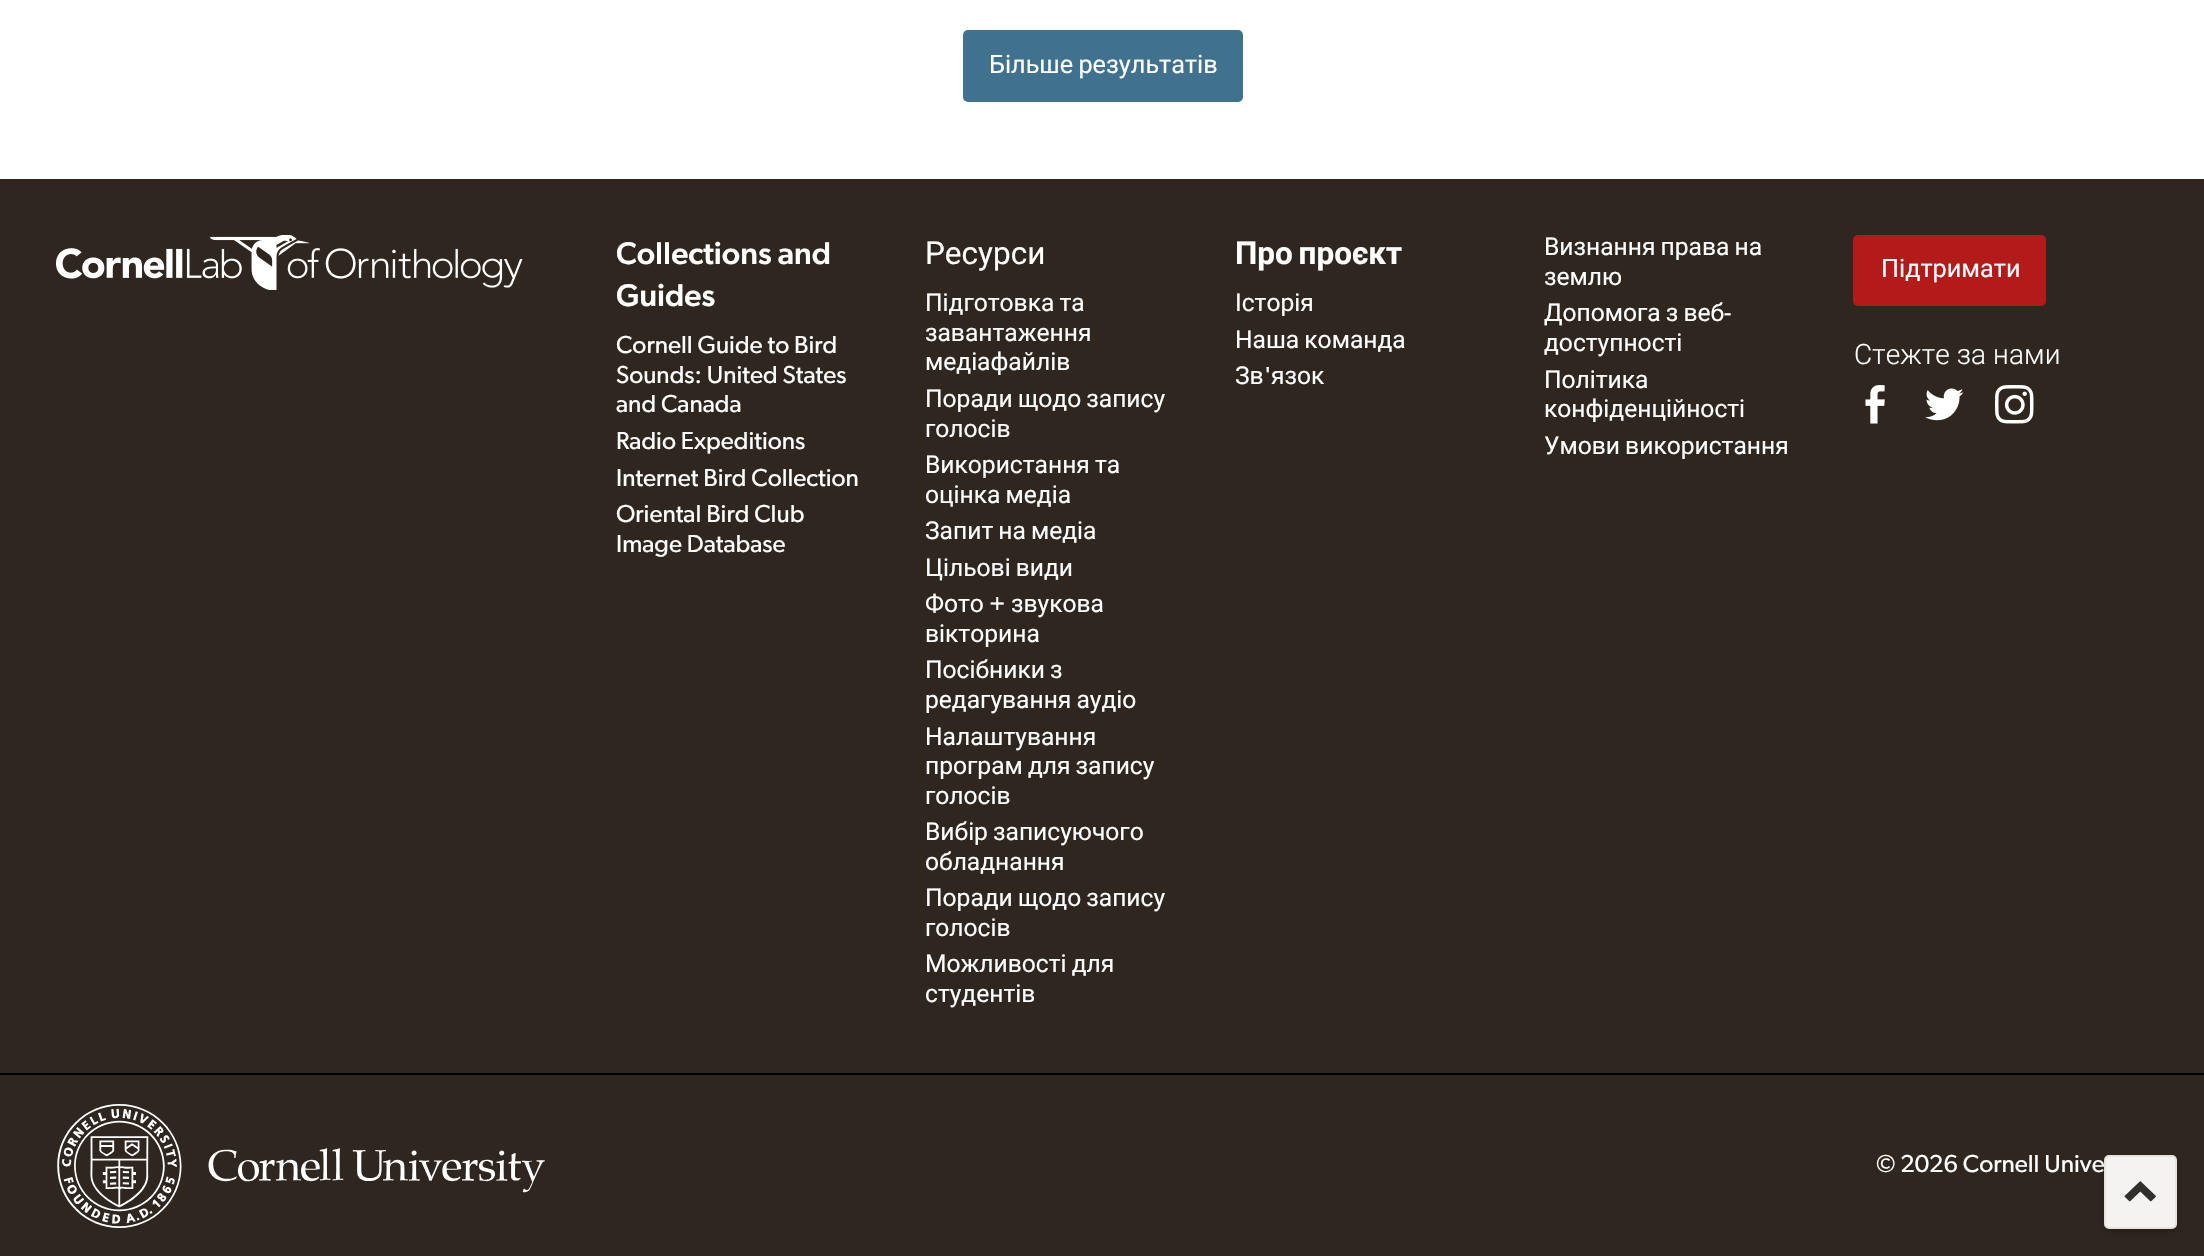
void draw(SkCanvas* c) {
SkPaint p;
p.setAntiAlias(true);
auto F=[&](const char* family, int weight, float size, bool italic = false){SkFontStyle style(weight, SkFontStyle::kNormal_Width,italic ? SkFontStyle::kItalic_Slant : SkFontStyle::kUpright_Slant);SkFont result(fontMgr->matchFamilyStyle(family, style), size);result.setSubpixel(true);return result;};
auto T=[&](const char* s, float x, float y, const SkFont& font){c->drawString(s, x, y, font, p);};
auto L=[&](const char* s, float x, float y, const SkFont& font, const SkPaint& ink, float letter, float word){std::vector<SkGlyphID> glyphs(font.countText(s, strlen(s), SkTextEncoding::kUTF8));std::vector<float> xs(glyphs.size());font.textToGlyphs(s, strlen(s), SkTextEncoding::kUTF8, glyphs);font.getXPos(glyphs, xs, x);float extra = 0;for (size_t i = 0; i < glyphs.size(); i++) {xs[i] += extra;extra += letter + word * (glyphs[i] == font.unicharToGlyph(' '));}c->drawTextBlob(SkTextBlob::MakeFromPosHGlyphs(glyphs, xs, y, font), 0, 0, ink);};
auto R=[&](float x, float y, float w, float h){c->drawRect(SkRect::MakeXYWH(x, y, w, h), p);};
auto Q=[&](float x, float y, float w, float h, float radius){c->drawRoundRect(SkRect::MakeXYWH(x, y, w, h), radius, radius, p);};
auto I=[&](const char* path, float x, float y, float w, float h){auto image = SkImages::DeferredFromEncodedData(SkData::MakeFromFileName(path));c->drawImageRect(image, SkRect::MakeXYWH(x, y, w, h), SkSamplingOptions());};
c->clear(0xffffffff);
p.setColor(0xff40718f);
Q(963,30,280,72,5);
auto f1 = F("Roboto",400,25.25);
p.setColor(0xffffffff);
L("Більше результатів",989,73,f1,p,0,-1);
p.setColor(0xff2e261f);
R(0,179,2204,1077);
I("1.png",56,235,467,55);
auto f2 = F("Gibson",500,31.5);
p.setColor(0xffffffff);
T("Collections and",616,264,f2);
T("Guides",616,306,f2);
auto f3 = F("Gibson",400,24.6);
T("Cornell Guide to Bird",616,353,f3);
T("Sounds: United States",616,383,f3);
T("and Canada",616,412,f3);
T("Radio Expeditions",616,449,f3);
T("Internet Bird Collection",616,486,f3);
T("Oriental Bird Club",616,522,f3);
T("Image Database",616,552,f3);
auto f4 = F("Roboto",400,31.5);
T("Ресурси",925,264,f4);
auto f5 = F("Roboto",400,24.6);
L("Підготовка та",925,311,f5,p,0,-1);
T("завантаження",925,341,f5);
T("медіафайлів",925,370,f5);
L("Поради щодо запису",925,407,f5,p,0,-1);
T("голосів",925,437,f5);
L("Використання та",925,473,f5,p,0,-1);
L("оцінка медіа",925,503,f5,p,0,-1);
L("Запит на медіа",925,539,f5,p,0,-1);
L("Цільові види",925,576,f5,p,0,-1);
T("Фото",925,612,f5);
T("+",989,612,f3);
T("звукова",1011,612,f5);
T("вікторина",925,642,f5);
L("Посібники з",925,678,f5,p,0,-1);
L("редагування аудіо",925,708,f5,p,0,-1);
T("Налаштування",925,745,f5);
L("програм для запису",925,774,f5,p,0,-1);
T("голосів",925,804,f5);
L("Вибір записуючого",925,840,f5,p,0,-1);
T("обладнання",925,870,f5);
L("Поради щодо запису",925,906,f5,p,0,-1);
T("голосів",925,936,f5);
L("Можливості для",925,972,f5,p,0,-1);
T("студентів",925,1002,f5);
auto f6 = F("Roboto",700,31.5);
L("Про проєкт",1235,264,f6,p,0,-2);
T("Історія",1235,311,f5);
L("Наша команда",1235,348,f5,p,0,-1);
T("Зв",1235,384,f5);
T("'",1264,384,f3);
T("язок",1271,384,f5);
L("Визнання права на",1544,255,f5,p,0,-1);
T("землю",1544,285,f5);
L("Допомога з веб",1544,321,f5,p,0,-1);
T("-",1724,321,f3);
T("доступності",1544,351,f5);
T("Політика",1544,388,f5);
T("конфіденційності",1544,417,f5);
L("Умови використання",1544,454,f5,p,0,-1);
p.setColor(0xffb31b1b);
Q(1853,235,193,71,5);
p.setColor(0xffffffff);
T("Підтримати",1881,277,f1);
auto f7 = F("Roboto",300,28);
L("Стежте за нами",1854,364,f7,p,.1,0);
I("2.png",1865,385,20,39);
I("3.png",1925,388,39,33);
I("4.png",1995,385,39,39);
p.setColor(0xff000000);
R(0,1073,2204,2);
I("5.png",57,1104,488,124);
p.setColor(0xffffffff);
T("© 2026 Cornell Unive",1876,1172,f3);
p.setColor(0x33000000);
p.setMaskFilter(SkMaskFilter::MakeBlur(kNormal_SkBlurStyle, 3.5));
c->drawRoundRect(SkRect::MakeXYWH(2104,1159,73,73),5,5,p);
p.setMaskFilter(nullptr);
p.setColor(0xfff4f3f1);
c->drawRoundRect(SkRect::MakeXYWH(2105,1156,71,72),4,4,p);
p.setStroke(true);
p.setStrokeWidth(2);
p.setColor(0xffe5e3dc);
c->drawRoundRect(SkRect::MakeXYWH(2105,1156,71,72),4,4,p);
I("6.png",2124,1181,32,21);
}
